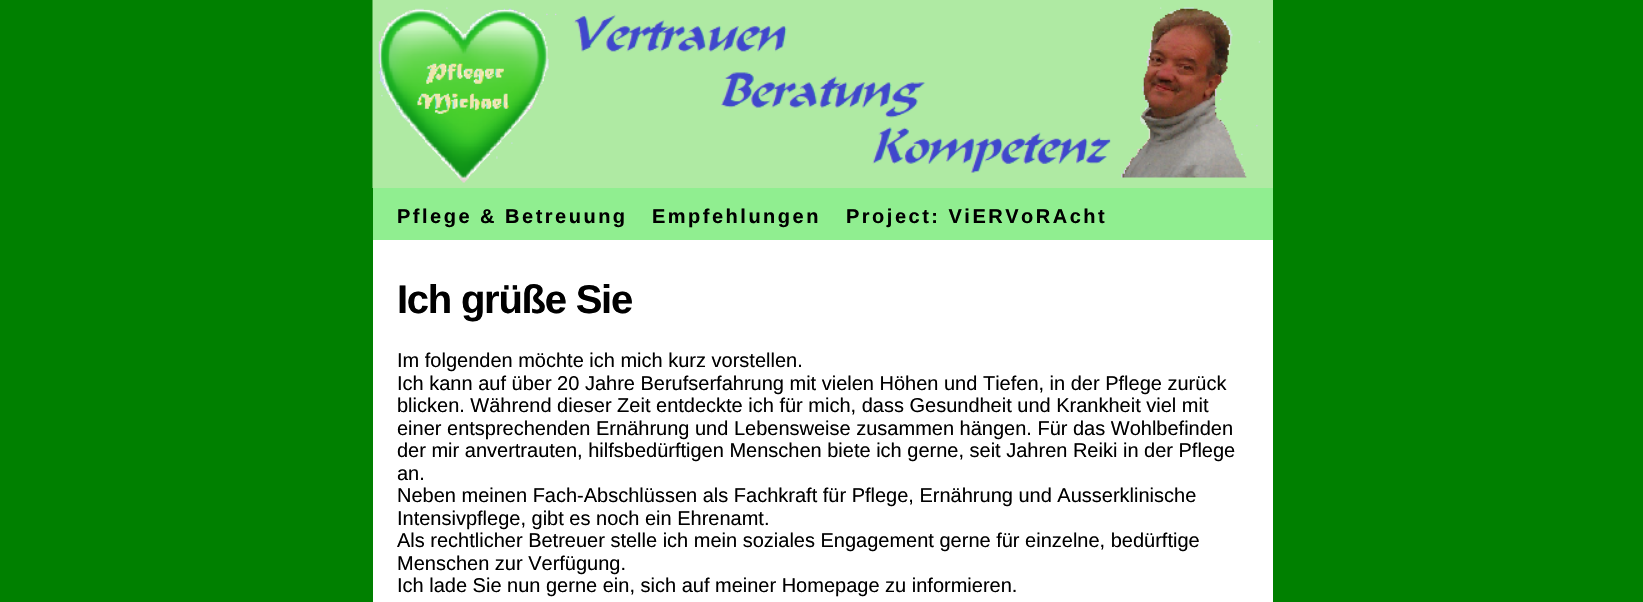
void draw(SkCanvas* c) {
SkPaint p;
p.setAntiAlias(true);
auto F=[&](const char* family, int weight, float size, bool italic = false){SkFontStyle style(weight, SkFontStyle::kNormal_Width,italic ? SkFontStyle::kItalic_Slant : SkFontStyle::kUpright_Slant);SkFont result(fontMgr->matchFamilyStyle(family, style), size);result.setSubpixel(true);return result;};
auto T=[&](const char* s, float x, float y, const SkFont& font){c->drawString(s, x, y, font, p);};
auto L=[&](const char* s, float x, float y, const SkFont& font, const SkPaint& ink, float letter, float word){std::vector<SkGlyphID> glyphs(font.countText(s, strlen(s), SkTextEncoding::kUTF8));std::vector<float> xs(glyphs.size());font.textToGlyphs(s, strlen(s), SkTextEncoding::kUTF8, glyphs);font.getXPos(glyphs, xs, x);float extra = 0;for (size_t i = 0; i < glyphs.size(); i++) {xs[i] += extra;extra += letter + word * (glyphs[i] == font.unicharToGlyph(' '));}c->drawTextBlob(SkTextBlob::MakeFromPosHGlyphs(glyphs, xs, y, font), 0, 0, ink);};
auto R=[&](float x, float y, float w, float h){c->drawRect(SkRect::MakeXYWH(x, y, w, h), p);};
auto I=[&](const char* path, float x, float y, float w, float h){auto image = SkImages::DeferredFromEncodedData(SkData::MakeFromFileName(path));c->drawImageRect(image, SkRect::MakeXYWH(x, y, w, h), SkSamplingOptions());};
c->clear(0xff008000);
p.setColor(0xffffffff);
R(373,240,900,362);
p.setColor(0xff90ee90);
R(373,188,900,52);
I("1.png",372,0,901,188);
auto f1 = F("Liberation Sans",700,20);
p.setColor(0xff000000);
L("Pflege & Betreuung",397,223,f1,p,2.5,0);
L("Empfehlungen",652,223,f1,p,2.5,0);
L("Project: ViERVoRAcht",846,223,f1,p,2.5,0);
auto f2 = F("Liberation Sans",700,40);
L("Ich grüße Sie",397,313,f2,p,-1.25,0);
auto f3 = F("Liberation Sans",400,20);
T("Im folgenden möchte ich mich kurz vorstellen.",397,367,f3);
T("Ich kann auf über 20 Jahre Berufserfahrung mit vielen Höhen und Tiefen, in der Pflege zurück",397,390,f3);
T("blicken. Während dieser Zeit entdeckte ich für mich, dass Gesundheit und Krankheit viel mit",397,412,f3);
T("einer entsprechenden Ernährung und Lebensweise zusammen hängen. Für das Wohlbefinden",397,435,f3);
T("der mir anvertrauten, hilfsbedürftigen Menschen biete ich gerne, seit Jahren Reiki in der Pflege",397,457,f3);
T("an.",397,480,f3);
T("Neben meinen Fach-Abschlüssen als Fachkraft für Pflege, Ernährung und Ausserklinische",397,502,f3);
T("Intensivpflege, gibt es noch ein Ehrenamt.",397,525,f3);
T("Als rechtlicher Betreuer stelle ich mein soziales Engagement gerne für einzelne, bedürftige",397,547,f3);
T("Menschen zur Verfügung.",397,570,f3);
T("Ich lade Sie nun gerne ein, sich auf meiner Homepage zu informieren.",397,592,f3);
}
